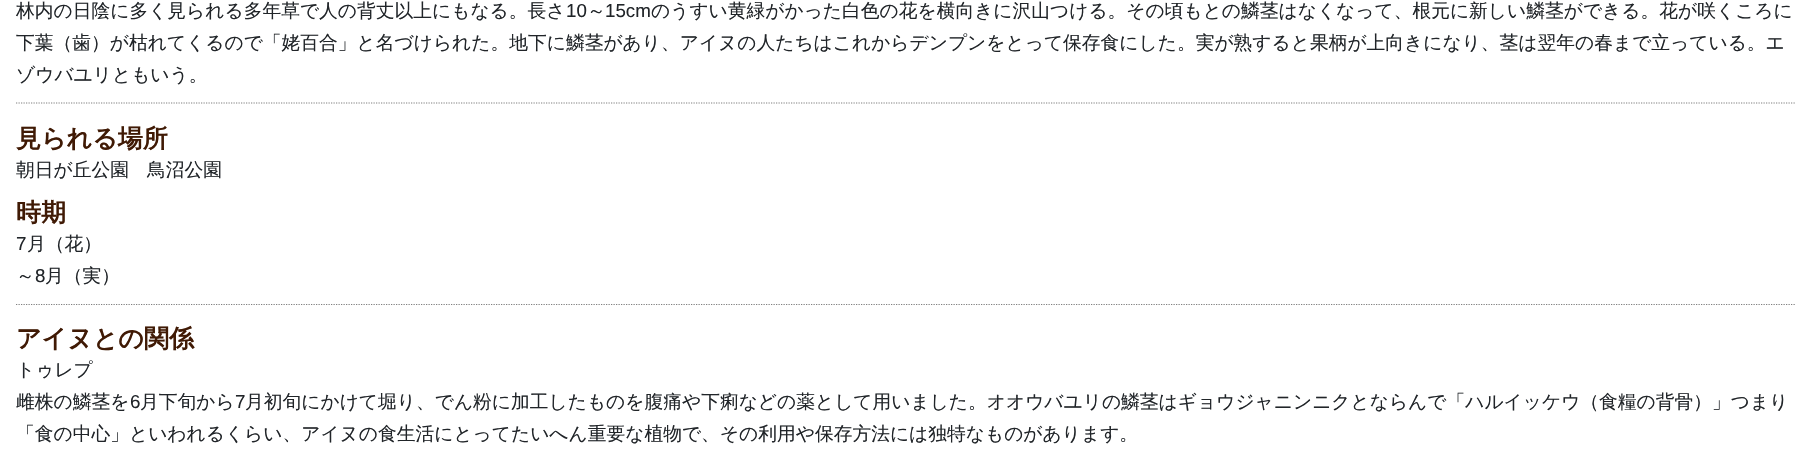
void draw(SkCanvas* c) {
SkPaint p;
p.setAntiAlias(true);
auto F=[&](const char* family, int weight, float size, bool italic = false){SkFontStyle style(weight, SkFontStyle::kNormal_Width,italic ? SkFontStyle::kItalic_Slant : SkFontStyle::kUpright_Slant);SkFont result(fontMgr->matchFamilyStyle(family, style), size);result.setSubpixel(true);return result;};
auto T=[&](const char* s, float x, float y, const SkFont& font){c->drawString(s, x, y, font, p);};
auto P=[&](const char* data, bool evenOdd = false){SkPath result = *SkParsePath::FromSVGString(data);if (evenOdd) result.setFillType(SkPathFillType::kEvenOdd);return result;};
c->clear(0xffffffff);
auto f1 = F("WenQuanYi Zen Hei",500,18.75);
p.setColor(0xff212529);
T("林内の日陰に多く見られる多年草で人の背丈以上にもなる。長さ",16,17,f1);
auto f2 = F("Liberation Sans",400,18.75);
T("10",566,17,f2);
T("～",587,17,f1);
T("15cm",605,17,f2);
T("のうすい黄緑がかった白色の花を横向きに沢山つける。その頃もとの鱗茎はなくなって、根元に新しい鱗茎ができる。花が咲くころに",651,17,f1);
T("下葉（歯）が枯れてくるので「姥百合」と名づけられた。地下に鱗茎があり、アイヌの人たちはこれからデンプンをとって保存食にした。実が熟すると果柄が上向きになり、茎は翌年の春まで立っている。エ",16,49,f1);
T("ゾウバユリともいう。",16,81,f1);
p.setStroke(true);
p.setStrokeWidth(1.2);
p.setColor(0xff808080);
p.setPathEffect(SkDashPathEffect::Make({{1.25f,1.25f}}, 0));
c->drawPath(P("M16 103h1779"),p);
p.setPathEffect(nullptr);
auto f3 = F("WenQuanYi Zen Hei",700,25);
p.setStroke(false);
p.setColor(0xff401a05);
T("見られる場所",16,147,f3);
p.setColor(0xff212529);
T("朝日が丘公園",16,176,f1);
T("鳥沼公園",147,176,f1);
p.setColor(0xff401a05);
T("時期",16,221,f3);
p.setColor(0xff212529);
T("7",16,250,f2);
T("月（花）",27,250,f1);
T("～",16,282,f1);
T("8",35,282,f2);
T("月（実）",45,282,f1);
p.setStroke(true);
p.setColor(0xff808080);
p.setPathEffect(SkDashPathEffect::Make({{1.25f,1.25f}}, 0));
c->drawPath(P("M16 304.5h1779"),p);
p.setPathEffect(nullptr);
p.setStroke(false);
p.setColor(0xff401a05);
T("アイヌとの関係",16,347,f3);
p.setColor(0xff212529);
T("トゥレプ",16,376,f1);
T("雌株の鱗茎を",16,408,f1);
T("6",130,408,f2);
T("月下旬から",140,408,f1);
T("7",235,408,f2);
T("月初旬にかけて堀り、でん粉に加工したものを腹痛や下痢などの薬として用いました。オオウバユリの鱗茎はギョウジャニンニクとならんで「ハルイッケウ（食糧の背骨）」つまり",245,408,f1);
T("「食の中心」といわれるくらい、アイヌの食生活にとってたいへん重要な植物で、その利用や保存方法には独特なものがあります。",16,440,f1);
}
